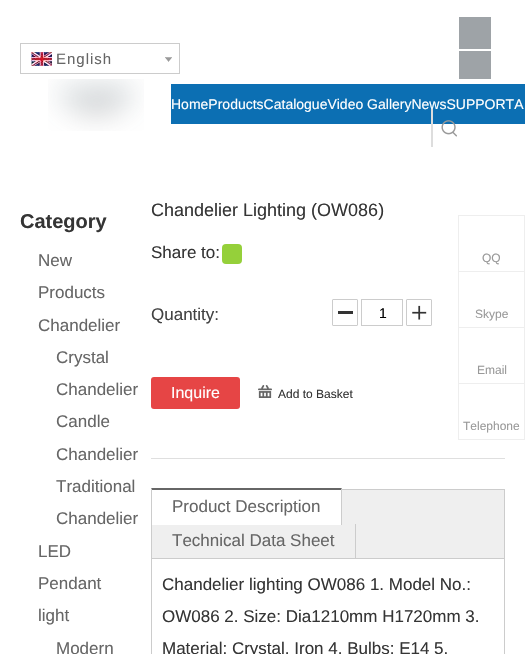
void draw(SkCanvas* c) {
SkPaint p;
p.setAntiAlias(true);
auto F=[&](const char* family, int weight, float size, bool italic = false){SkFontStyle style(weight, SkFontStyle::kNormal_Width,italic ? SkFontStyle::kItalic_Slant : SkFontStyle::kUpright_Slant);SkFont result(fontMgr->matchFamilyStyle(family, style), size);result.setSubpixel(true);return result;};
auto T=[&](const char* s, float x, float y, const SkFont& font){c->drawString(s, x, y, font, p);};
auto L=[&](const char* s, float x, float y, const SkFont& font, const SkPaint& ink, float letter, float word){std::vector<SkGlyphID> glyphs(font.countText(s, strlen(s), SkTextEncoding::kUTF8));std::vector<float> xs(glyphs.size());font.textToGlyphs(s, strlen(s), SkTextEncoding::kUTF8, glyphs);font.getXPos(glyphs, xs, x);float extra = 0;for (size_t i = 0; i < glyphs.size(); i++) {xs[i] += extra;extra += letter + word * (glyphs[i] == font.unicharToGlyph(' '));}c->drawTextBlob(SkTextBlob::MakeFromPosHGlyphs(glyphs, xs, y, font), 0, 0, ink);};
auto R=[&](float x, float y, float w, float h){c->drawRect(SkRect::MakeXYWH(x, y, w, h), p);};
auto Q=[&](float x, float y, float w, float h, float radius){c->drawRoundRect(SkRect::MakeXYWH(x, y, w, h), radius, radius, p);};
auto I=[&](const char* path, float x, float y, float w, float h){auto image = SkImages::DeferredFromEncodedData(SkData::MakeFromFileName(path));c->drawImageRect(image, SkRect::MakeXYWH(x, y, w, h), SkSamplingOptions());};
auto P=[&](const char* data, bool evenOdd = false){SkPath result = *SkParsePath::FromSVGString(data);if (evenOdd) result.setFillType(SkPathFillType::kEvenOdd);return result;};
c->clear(0xffffffff);
p.setStroke(true);
p.setStrokeWidth(1);
p.setColor(0xffcccccc);
c->drawRect(SkRect::MakeXYWH(20.5,43.5,159,30),p);
I("1.png",31,52,21,14);
auto f1 = F("Liberation Sans",400,15);
p.setStroke(false);
p.setColor(0xff666666);
L("English",56,64,f1,p,1,0);
I("2.png",165,57,7,5);
p.setColor(0xff9ea3a7);
R(459,17,32,32);
R(459,51,32,28);
I("3.png",48,79,96,52);
p.setColor(0xff0c6fb3);
R(171,84,354,40);
auto f2 = F("Liberation Sans",400,14);
p.setColor(0xffffffff);
T("HomeProductsCatalogueVideo GalleryNewsSUPPORTA",171,109,f2);
p.setColor(0xffdddddd);
R(431,109,2,38);
I("4.png",441,120,16,17);
auto f3 = F("Liberation Sans",700,20);
p.setColor(0xff353535);
T("Category",20,228,f3);
auto f4 = F("Liberation Sans",400,17);
p.setColor(0xff666666);
T("New",38,266,f4);
T("Products",38,298,f4);
T("Chandelier",38,331,f4);
T("Crystal",56,363,f4);
T("Chandelier",56,395,f4);
T("Candle",56,427,f4);
T("Chandelier",56,460,f4);
T("Traditional",56,492,f4);
T("Chandelier",56,524,f4);
T("LED",38,557,f4);
T("Pendant",38,589,f4);
T("light",38,621,f4);
T("Modern",56,654,f4);
auto f5 = F("Liberation Sans",400,18);
p.setColor(0xff353535);
T("Chandelier Lighting (OW086)",151,216,f5);
T("Share to:",151,258,f4);
p.setColor(0xff95d03a);
Q(222,244,20,20,4);
p.setColor(0xff424242);
T("Quantity:",151,320,f4);
p.setColor(0xff333333);
R(338,311,15,3);
p.setStroke(true);
p.setColor(0xffcccccc);
c->drawRoundRect(SkRect::MakeXYWH(332.5,299.5,25,26),.5,.5,p);
c->drawRect(SkRect::MakeXYWH(361.5,299.5,41,26),p);
p.setStroke(false);
p.setColor(0xff000000);
T("1",379,318,f2);
I("5.png",412,305,15,15);
p.setStroke(true);
p.setColor(0xffcccccc);
c->drawRoundRect(SkRect::MakeXYWH(406.5,299.5,25,26),.5,.5,p);
p.setStroke(false);
p.setColor(0xffe64545);
Q(151,377,89,32,3);
auto f6 = F("Liberation Sans",400,16);
p.setColor(0xffffffff);
T("Inquire",171,398,f6);
I("6.png",258,385,14,13);
auto f7 = F("Liberation Sans",400,12);
p.setColor(0xff353535);
T("Add to Basket",278,398,f7);
p.setColor(0xffdfdfdf);
R(151,458,354,1);
p.setStroke(true);
p.setColor(0xffcccccc);
c->drawRect(SkRect::MakeXYWH(151.5,489.5,353,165),p);
p.setStroke(false);
p.setColor(0xffefefef);
R(342,490,162,68);
p.setColor(0xffcccccc);
R(152,558,352,1);
p.setColor(0xffefefef);
R(152,524,190,34);
p.setColor(0xffffffff);
R(151,489,191,36);
p.setColor(0xff666666);
c->drawPath(P("M151 488h191l-1 2h-189z"),p);
p.setColor(0xffcccccc);
c->drawPath(P("M342 488v37h-1v-35z"),p);
c->drawPath(P("M151 525v-37l1 2v35z"),p);
p.setColor(0xff666666);
T("Product Description",172,512,f4);
p.setColor(0xffcccccc);
R(355,524,1,34);
p.setColor(0xff666666);
T("Technical Data Sheet",172,546,f4);
p.setColor(0xff353535);
T("Chandelier lighting OW086 1. Model No.:",162,590,f4);
T("OW086 2. Size: Dia1210mm H1720mm 3.",162,622,f4);
T("Material: Crystal, Iron 4. Bulbs: E14 5.",162,654,f4);
p.setColor(0xffeeeeee);
R(458,215,67,1);
R(524,215,1,56);
R(458,215,1,56);
p.setColor(0xff999999);
T("QQ",482,262,f7);
p.setColor(0xffeeeeee);
R(458,271,67,1);
R(524,271,1,56);
R(458,271,1,56);
p.setColor(0xff999999);
T("Skype",475,318,f7);
p.setColor(0xffeeeeee);
R(458,327,67,1);
R(524,327,1,56);
R(458,327,1,56);
p.setColor(0xff999999);
T("Email",477,374,f7);
p.setStroke(true);
p.setColor(0xffeeeeee);
c->drawRect(SkRect::MakeXYWH(458.5,383.5,66,56),p);
p.setStroke(false);
p.setColor(0xff999999);
T("Telephone",463,430,f7);
}
